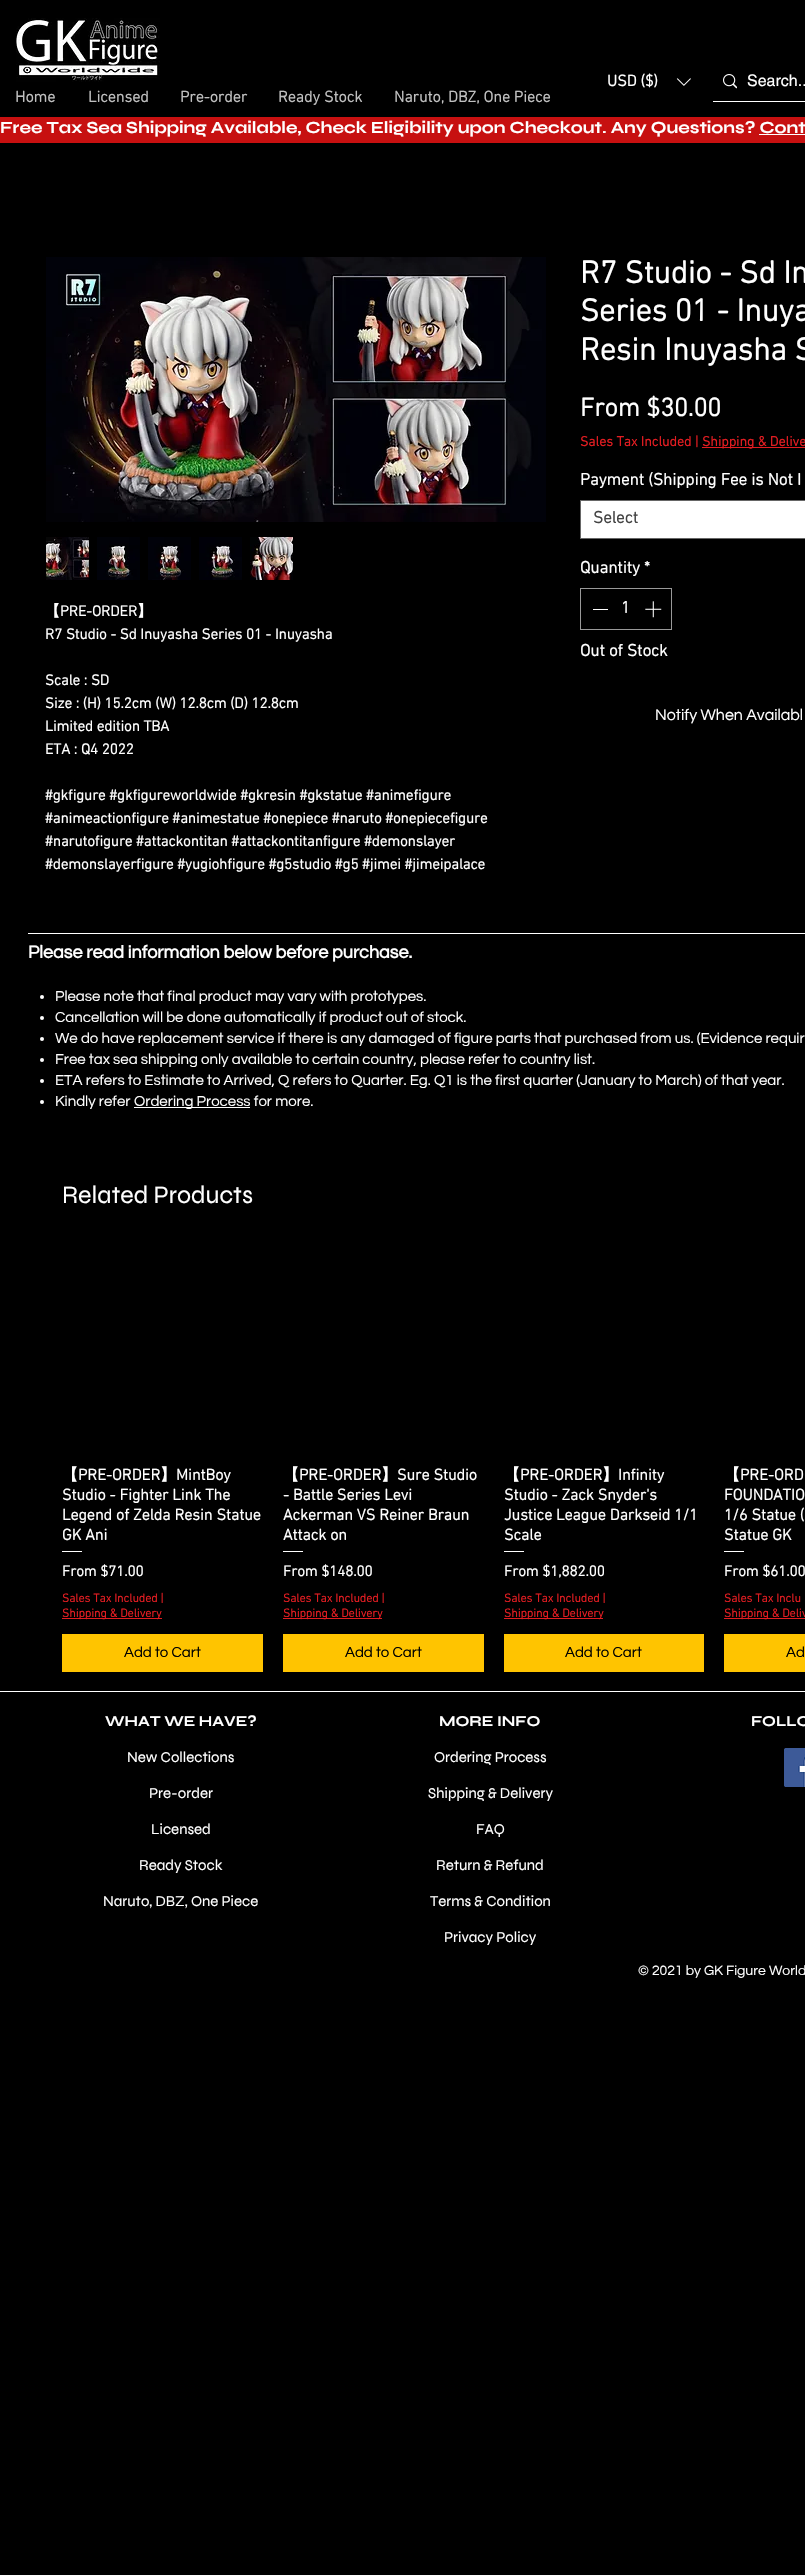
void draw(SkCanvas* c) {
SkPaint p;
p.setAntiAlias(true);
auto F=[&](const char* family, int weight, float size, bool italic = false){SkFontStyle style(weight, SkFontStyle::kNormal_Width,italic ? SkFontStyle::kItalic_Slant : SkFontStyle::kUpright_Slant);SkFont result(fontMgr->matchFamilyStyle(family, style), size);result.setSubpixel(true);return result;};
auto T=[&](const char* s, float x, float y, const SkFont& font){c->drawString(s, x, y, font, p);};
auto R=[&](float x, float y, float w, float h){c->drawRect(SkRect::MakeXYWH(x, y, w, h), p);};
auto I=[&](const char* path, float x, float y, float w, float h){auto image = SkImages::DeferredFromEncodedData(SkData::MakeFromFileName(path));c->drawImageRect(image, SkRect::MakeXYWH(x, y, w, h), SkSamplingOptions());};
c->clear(0xff000000);
I("1.png",16,18,144,64);
auto f1 = F("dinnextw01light",700,16);
p.setColor(0xffffffff);
T("USD ($)",607,86,f1);
I("2.png",676,78,15,8);
R(713,101,92,1);
I("3.png",723,74,14,15);
auto f2 = F("helvetica",400,16);
T("Search..",747,86,f2);
p.setColor(0xffbfbfbf);
T("Home",15,102,f1);
T("Licensed",88,102,f1);
T("Pre-order",180,102,f1);
T("Ready Stock",278,102,f1);
T("Naruto, DBZ, One Piece",394,102,f1);
p.setColor(0xffc71010);
R(0,117,805,26);
auto f3 = F("Syne",700,17);
p.setColor(0xffffffff);
T("Free Tax Sea Shipping Available, Check Eligibility upon Checkout. Any Questions? Cont",0,133,f3);
R(759,134,46,1);
I("4.png",46,257,500,265);
I("5.png",46,537,43,43);
I("6.png",97,537,43,43);
I("7.png",148,537,43,43);
I("8.png",199,537,43,43);
I("9.png",250,537,43,43);
auto f4 = F("WenQuanYi Zen Hei",700,15);
T("【",45,616,f4);
auto f5 = F("dinnextw01light",700,15);
T("PRE-ORDER",60,616,f5);
T("】",137,616,f4);
T("R7 Studio - Sd Inuyasha Series 01 - Inuyasha",45,639,f5);
T("Scale : SD",45,685,f5);
T("Size : (H) 15.2cm (W) 12.8cm (D) 12.8cm",45,708,f5);
T("Limited edition TBA",45,731,f5);
T("ETA : Q4 2022",45,754,f5);
T("#gkfigure #gkfigureworldwide #gkresin #gkstatue #animefigure",45,800,f5);
T("#animeactionfigure #animestatue #onepiece #naruto #onepiecefigure",45,823,f5);
T("#narutofigure #attackontitan #attackontitanfigure #demonslayer",45,846,f5);
T("#demonslayerfigure #yugiohfigure #g5studio #g5 #jimei #jimeipalace",45,869,f5);
auto f6 = F("dinnextw01light",700,32);
T("R7 Studio - Sd In",580,283,f6);
T("Series 01 - Inuya",580,321,f6);
T("Resin Inuyasha S",580,360,f6);
auto f7 = F("dinnextw01light",700,26);
T("From $30.00",580,416,f7);
auto f8 = F("dinnextw01light",700,14);
p.setColor(0xffe21c21);
T("Sales Tax Included |",580,446,f8);
R(702,447,103,1);
T("Shipping & Delive",702,446,f8);
auto f9 = F("dinnextw01light",700,17);
p.setColor(0xffffffff);
T("Payment (Shipping Fee is Not I",580,485,f9);
c->drawRect(SkRect::MakeXYWH(580.5,500.5,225,38),p);
p.setStroke(true);
p.setStrokeWidth(1);
p.setColor(0xff666666);
c->drawRect(SkRect::MakeXYWH(580.5,500.5,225,38),p);
p.setStroke(false);
p.setColor(0xff444444);
T("Select",593,523,f9);
p.setColor(0xffffffff);
T("Quantity *",580,573,f9);
p.setStroke(true);
p.setColor(0xff999999);
c->drawRect(SkRect::MakeXYWH(580.5,588.5,91,41),p);
p.setStroke(false);
p.setColor(0xffffffff);
R(593,609,15,1);
T("1",621,613,f9);
I("10.png",645,601,17,17);
T("Out of Stock",580,656,f9);
auto f10 = F("Questrial",400,16);
T("Notify When Availabl",655,720,f10);
R(28,933,777,1);
auto f11 = F("Questrial",700,18);
T("Please read information below before purchase.",28,958,f11);
c->drawCircle(42,997,2,p);
auto f12 = F("Questrial",400,15);
T("Please note that final product may vary with prototypes.",55,1001,f12);
c->drawCircle(42,1018,2,p);
T("Cancellation will be done automatically if product out of stock.",55,1022,f12);
c->drawCircle(42,1039,2,p);
T("We do have replacement service if there is any damaged of figure parts that purchased from us. (Evidence requir",55,1043,f12);
c->drawCircle(42,1060,2,p);
T("Free tax sea shipping only available to certain country, please refer to country list.",55,1064,f12);
c->drawCircle(42,1081,2,p);
T("ETA refers to Estimate to Arrived, Q refers to Quarter. Eg. Q1 is the first quarter (January to March) of that year.",55,1085,f12);
c->drawCircle(42,1102,2,p);
T("Kindly refer",55,1106,f12);
R(134,1107,116,1);
T("Ordering Process for more.",134,1106,f12);
auto f13 = F("Syne",400,25);
T("Related Products",62,1203,f13);
auto f14 = F("WenQuanYi Zen Hei",700,16);
T("【",62,1480,f14);
T("PRE-ORDER",78,1480,f1);
T("】",160,1480,f14);
T("MintBoy",176,1480,f1);
T("Studio - Fighter Link The",62,1500,f1);
T("Legend of Zelda Resin Statue",62,1520,f1);
T("GK Ani",62,1540,f1);
R(62,1551,20,1);
T("From $71.00",62,1576,f5);
auto f15 = F("dinnextw01light",700,12);
p.setColor(0xffe21c21);
T("Sales Tax Included |",62,1602,f15);
R(62,1618,100,1);
T("Shipping & Delivery",62,1617,f15);
p.setColor(0xffffc400);
R(62,1634,201,38);
p.setColor(0xff000000);
T("Add to Cart",124,1657,f12);
p.setColor(0xffffffff);
T("【",283,1480,f14);
T("PRE-ORDER",299,1480,f1);
T("】",381,1480,f14);
T("Sure Studio",397,1480,f1);
T("- Battle Series Levi",283,1500,f1);
T("Ackerman VS Reiner Braun",283,1520,f1);
T("Attack on",283,1540,f1);
R(283,1551,20,1);
T("From $148.00",283,1576,f5);
p.setColor(0xffe21c21);
T("Sales Tax Included |",283,1602,f15);
R(283,1618,99,1);
T("Shipping & Delivery",283,1617,f15);
p.setColor(0xffffc400);
R(283,1634,201,38);
p.setColor(0xff000000);
T("Add to Cart",345,1657,f12);
p.setColor(0xffffffff);
T("【",504,1480,f14);
T("PRE-ORDER",520,1480,f1);
T("】",602,1480,f14);
T("Infinity",618,1480,f1);
T("Studio - Zack Snyder's",504,1500,f1);
T("Justice League Darkseid 1/1",504,1520,f1);
T("Scale",504,1540,f1);
R(504,1551,20,1);
T("From $1,882.00",504,1576,f5);
p.setColor(0xffe21c21);
T("Sales Tax Included |",504,1602,f15);
R(504,1618,99,1);
T("Shipping & Delivery",504,1617,f15);
p.setColor(0xffffc400);
R(504,1634,200,38);
p.setColor(0xff000000);
T("Add to Cart",565,1657,f12);
p.setColor(0xffffffff);
T("【",724,1480,f14);
T("PRE-ORD",740,1480,f1);
T("FOUNDATIO",724,1500,f1);
T("1/6 Statue (",724,1520,f1);
T("Statue GK",724,1540,f1);
R(724,1551,20,1);
T("From $61.00",724,1576,f5);
p.setColor(0xffe21c21);
T("Sales Tax Inclu",724,1602,f15);
R(724,1618,81,1);
T("Shipping & Deliv",724,1617,f15);
p.setColor(0xffffc400);
R(724,1634,81,38);
p.setColor(0xff000000);
T("Ad",786,1657,f12);
p.setColor(0xffffffff);
R(0,1691,805,1);
auto f16 = F("Syne",700,15);
T("WHAT WE HAVE?",105,1726,f16);
auto f17 = F("Syne",400,15);
T("New Collections",127,1762,f17);
T("Pre-order",149,1798,f17);
T("Licensed",151,1834,f17);
T("Ready Stock",139,1870,f17);
T("Naruto, DBZ, One Piece",103,1906,f17);
T("MORE INFO",439,1726,f16);
T("Ordering Process",434,1762,f17);
T("Shipping & Delivery",428,1798,f17);
T("FAQ",476,1834,f17);
T("Return & Refund",436,1870,f17);
T("Terms & Condition",430,1906,f17);
T("Privacy Policy",444,1942,f17);
T("FOLLO",751,1726,f16);
I("11.png",784,1748,21,39);
auto f18 = F("Questrial",400,14);
T("© 2021 by GK Figure World",638,1975,f18);
}
